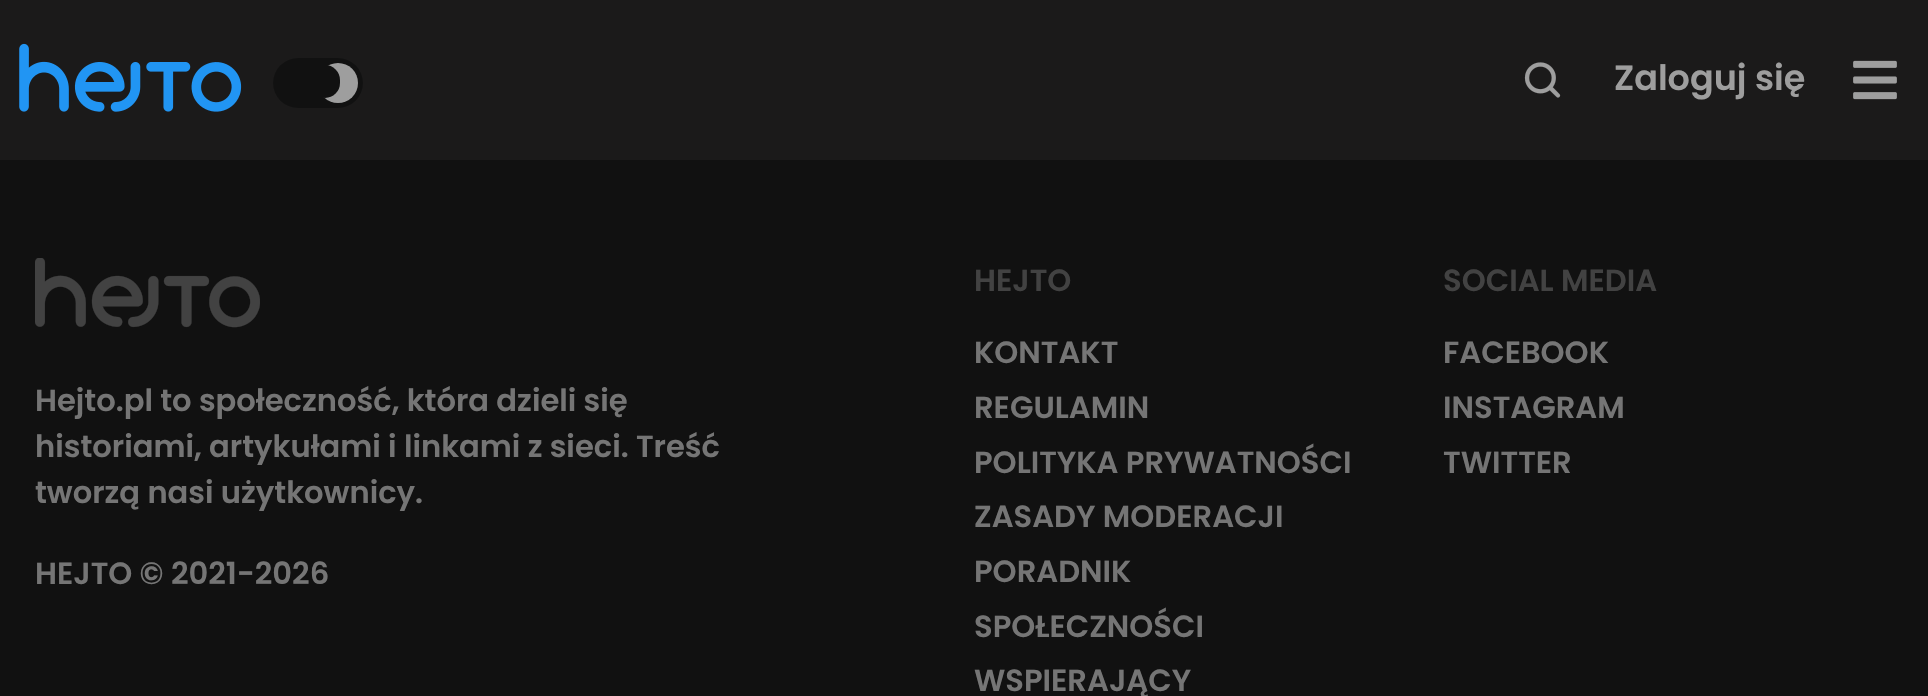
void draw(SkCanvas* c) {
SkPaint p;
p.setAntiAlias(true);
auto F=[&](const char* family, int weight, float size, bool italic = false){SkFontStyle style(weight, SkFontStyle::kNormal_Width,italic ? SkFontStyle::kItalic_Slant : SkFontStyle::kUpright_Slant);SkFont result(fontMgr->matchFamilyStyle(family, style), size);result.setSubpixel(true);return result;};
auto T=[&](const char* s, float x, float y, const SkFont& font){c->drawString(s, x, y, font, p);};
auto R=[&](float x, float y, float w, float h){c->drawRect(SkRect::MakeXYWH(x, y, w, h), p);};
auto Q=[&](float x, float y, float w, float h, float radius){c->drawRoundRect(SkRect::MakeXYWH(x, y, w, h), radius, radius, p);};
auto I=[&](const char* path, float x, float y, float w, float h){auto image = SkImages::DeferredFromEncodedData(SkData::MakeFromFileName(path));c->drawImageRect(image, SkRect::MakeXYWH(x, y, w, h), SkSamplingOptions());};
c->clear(0xff111111);
p.setColor(0xff1b1a1a);
R(0,0,1928,160);
I("1.png",19,43,223,69);
p.setColor(0xff111111);
Q(273,58,90,50,25);
p.setColor(0xff9e9e9e);
c->drawCircle(338,83,20,p);
p.setColor(0xff111111);
Q(310,65,30,33,15);
I("2.png",1524,62,37,36);
auto f1 = F("Poppins",600,35);
p.setColor(0xff9e9e9e);
T("Zaloguj się",1614,90,f1);
I("3.png",1853,60,44,40);
I("4.png",35,258,225,70);
auto f2 = F("Poppins",600,30.6);
p.setColor(0xff757575);
T("Hejto.pl to społeczność, która dzieli się",35,411,f2);
T("historiami, artykułami i linkami z sieci. Treść",35,457,f2);
T("tworzą nasi użytkownicy.",35,503,f2);
T("HEJTO © 2021-2026",35,584,f2);
p.setColor(0xff424242);
T("HEJTO",974,291,f2);
p.setColor(0xff757575);
T("KONTAKT",974,363,f2);
T("REGULAMIN",974,418,f2);
T("POLITYKA PRYWATNOŚCI",974,473,f2);
T("ZASADY MODERACJI",974,527,f2);
T("PORADNIK",974,582,f2);
T("SPOŁECZNOŚCI",974,637,f2);
T("WSPIERAJĄCY",974,691,f2);
p.setColor(0xff424242);
T("SOCIAL MEDIA",1443,291,f2);
p.setColor(0xff757575);
T("FACEBOOK",1443,363,f2);
T("INSTAGRAM",1443,418,f2);
T("TWITTER",1443,473,f2);
}
